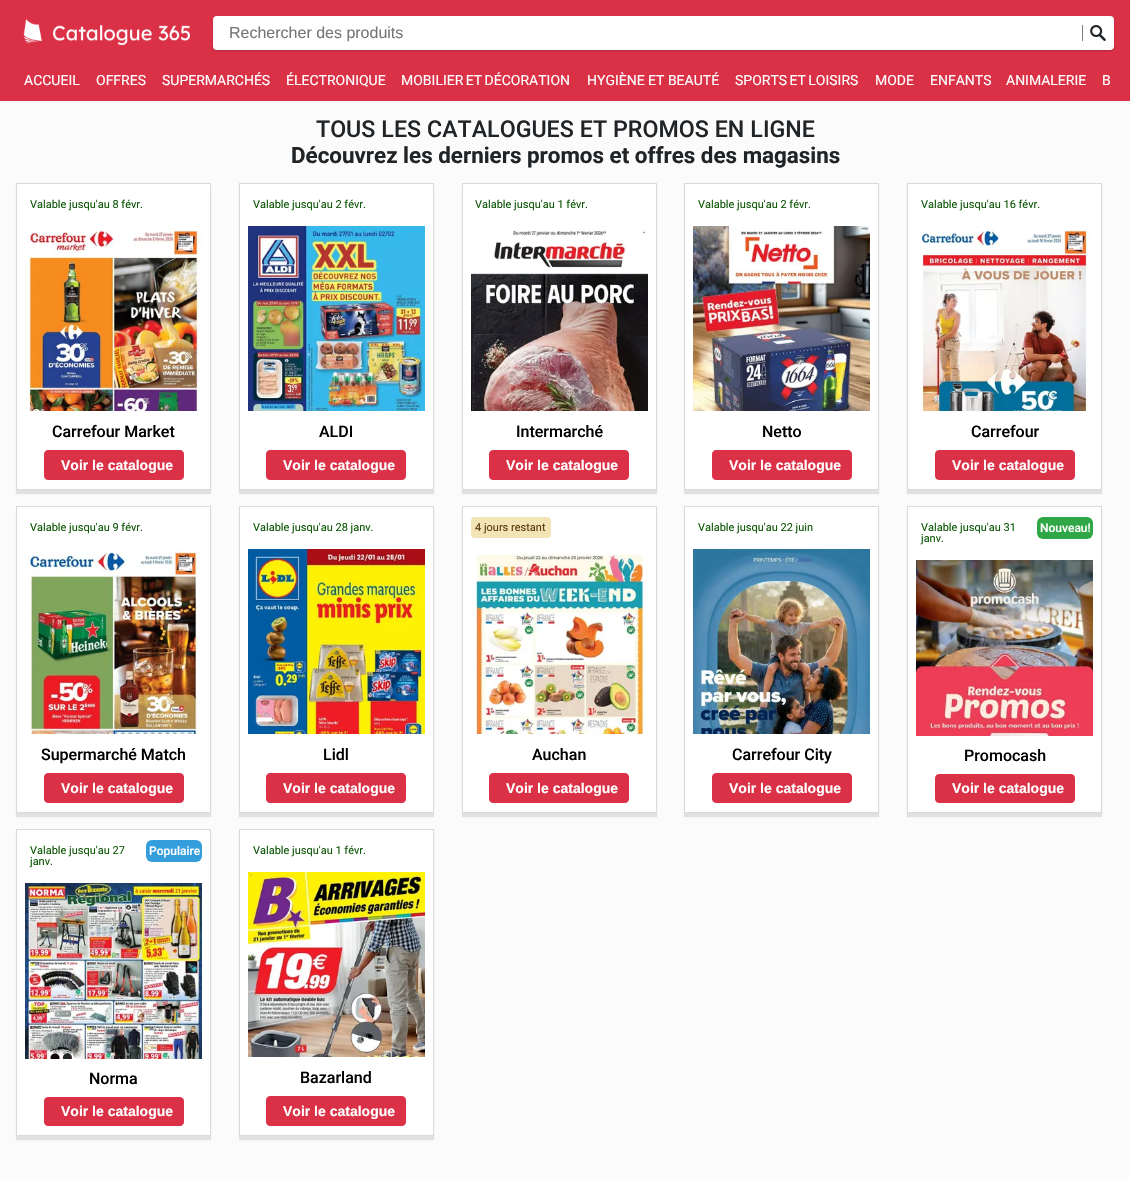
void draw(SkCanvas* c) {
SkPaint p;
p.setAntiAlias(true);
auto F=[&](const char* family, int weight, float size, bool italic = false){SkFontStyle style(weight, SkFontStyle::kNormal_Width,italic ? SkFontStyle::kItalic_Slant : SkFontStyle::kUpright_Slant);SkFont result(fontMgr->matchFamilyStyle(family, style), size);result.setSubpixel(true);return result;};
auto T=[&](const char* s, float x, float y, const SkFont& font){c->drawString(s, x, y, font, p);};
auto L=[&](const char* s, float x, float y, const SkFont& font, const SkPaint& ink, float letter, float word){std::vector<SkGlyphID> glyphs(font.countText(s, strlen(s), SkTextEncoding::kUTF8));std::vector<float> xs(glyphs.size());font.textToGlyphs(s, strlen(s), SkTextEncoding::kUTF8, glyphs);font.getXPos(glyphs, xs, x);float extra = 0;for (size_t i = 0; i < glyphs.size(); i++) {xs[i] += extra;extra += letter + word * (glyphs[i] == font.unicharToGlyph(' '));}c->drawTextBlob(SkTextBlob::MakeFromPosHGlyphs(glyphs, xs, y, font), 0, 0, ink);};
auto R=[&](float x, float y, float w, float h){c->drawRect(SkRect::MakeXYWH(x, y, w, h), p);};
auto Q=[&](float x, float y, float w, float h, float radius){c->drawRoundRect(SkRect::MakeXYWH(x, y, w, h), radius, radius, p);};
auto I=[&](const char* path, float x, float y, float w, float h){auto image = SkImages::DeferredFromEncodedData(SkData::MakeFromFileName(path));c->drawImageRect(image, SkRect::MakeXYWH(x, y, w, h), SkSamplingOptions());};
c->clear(0xfffbfbfb);
p.setColor(0xffdb3147);
R(0,0,1130,101);
I("1.png",23,19,167,26);
p.setColor(0x33000000);
p.setMaskFilter(SkMaskFilter::MakeBlur(kNormal_SkBlurStyle, 1));
c->drawRoundRect(SkRect::MakeXYWH(213,17,901,34),4,4,p);
p.setMaskFilter(nullptr);
p.setColor(0xffffffff);
Q(213,16,901,34,4);
auto f1 = F("Liberation Sans",400,16);
p.setColor(0xff757575);
T("Rechercher des produits",229,38,f1);
p.setColor(0xff808080);
R(1082,25,1,16);
I("2.png",1090,25,16,16);
auto f2 = F("Roboto",400,14);
p.setColor(0xffffffff);
T("ACCUEIL",24,85,f2);
T("OFFRES",96,85,f2);
T("SUPERMARCHÉS",162,85,f2);
T("ÉLECTRONIQUE",286,85,f2);
L("MOBILIER ET DÉCORATION",401,85,f2,p,0,-1);
T("HYGIÈNE ET BEAUTÉ",587,85,f2);
L("SPORTS ET LOISIRS",735,85,f2,p,0,-1);
T("MODE",875,85,f2);
T("ENFANTS",930,85,f2);
T("ANIMALERIE",1006,85,f2);
T("B",1102,85,f2);
auto f3 = F("Roboto",500,23.2);
p.setColor(0xff212427);
L("TOUS LES CATALOGUES ET PROMOS EN LIGNE",316,137,f3,p,0,.25);
auto f4 = F("Roboto",700,22.4);
T("Découvrez les derniers promos et offres des magasins",291,163,f4);
p.setColor(0x1a000000);
p.setMaskFilter(SkMaskFilter::MakeBlur(kNormal_SkBlurStyle, .5));
c->drawRect(SkRect::MakeXYWH(16,187,195,307),p);
p.setMaskFilter(nullptr);
p.setColor(0xffffffff);
c->drawRect(SkRect::MakeXYWH(16.5,183.5,194,306),p);
p.setStroke(true);
p.setStrokeWidth(1);
p.setColor(0xffdcd9d9);
c->drawRect(SkRect::MakeXYWH(16.5,183.5,194,306),p);
auto f5 = F("Roboto",400,11);
p.setStroke(false);
p.setColor(0xff0d5706);
T("Valable jusqu'au 8 févr.",30,208,f5);
I("3.png",25,229,177,182);
auto f6 = F("Roboto",500,16);
p.setColor(0xff000000);
T("Carrefour Market",52,437,f6);
p.setColor(0xffdb3147);
c->drawRoundRect(SkRect::MakeXYWH(44.5,450.5,139,29),3.5,3.5,p);
p.setStroke(true);
c->drawRoundRect(SkRect::MakeXYWH(44.5,450.5,139,29),3.5,3.5,p);
auto f7 = F("Liberation Sans",700,14);
p.setStroke(false);
p.setColor(0xffffffff);
T("Voir le catalogue",61,470,f7);
p.setColor(0x1a000000);
p.setMaskFilter(SkMaskFilter::MakeBlur(kNormal_SkBlurStyle, .5));
c->drawRect(SkRect::MakeXYWH(239,187,195,307),p);
p.setMaskFilter(nullptr);
p.setColor(0xffffffff);
c->drawRect(SkRect::MakeXYWH(239.5,183.5,194,306),p);
p.setStroke(true);
p.setColor(0xffdcd9d9);
c->drawRect(SkRect::MakeXYWH(239.5,183.5,194,306),p);
p.setStroke(false);
p.setColor(0xff0d5706);
T("Valable jusqu'au 2 févr.",253,208,f5);
I("4.png",248,226,177,185);
p.setColor(0xff000000);
T("ALDI",319,437,f6);
p.setColor(0xffdb3147);
c->drawRoundRect(SkRect::MakeXYWH(266.5,450.5,139,29),3.5,3.5,p);
p.setStroke(true);
c->drawRoundRect(SkRect::MakeXYWH(266.5,450.5,139,29),3.5,3.5,p);
p.setStroke(false);
p.setColor(0xffffffff);
T("Voir le catalogue",283,470,f7);
p.setColor(0x1a000000);
p.setMaskFilter(SkMaskFilter::MakeBlur(kNormal_SkBlurStyle, .5));
c->drawRect(SkRect::MakeXYWH(462,187,195,307),p);
p.setMaskFilter(nullptr);
p.setColor(0xffffffff);
c->drawRect(SkRect::MakeXYWH(462.5,183.5,194,306),p);
p.setStroke(true);
p.setColor(0xffdcd9d9);
c->drawRect(SkRect::MakeXYWH(462.5,183.5,194,306),p);
p.setStroke(false);
p.setColor(0xff0d5706);
T("Valable jusqu'au 1 févr.",475,208,f5);
I("5.png",471,229,177,182);
p.setColor(0xff000000);
T("Intermarché",516,437,f6);
p.setColor(0xffdb3147);
c->drawRoundRect(SkRect::MakeXYWH(489.5,450.5,139,29),3.5,3.5,p);
p.setStroke(true);
c->drawRoundRect(SkRect::MakeXYWH(489.5,450.5,139,29),3.5,3.5,p);
p.setStroke(false);
p.setColor(0xffffffff);
T("Voir le catalogue",506,470,f7);
p.setColor(0x1a000000);
p.setMaskFilter(SkMaskFilter::MakeBlur(kNormal_SkBlurStyle, .5));
c->drawRect(SkRect::MakeXYWH(684,187,195,307),p);
p.setMaskFilter(nullptr);
p.setColor(0xffffffff);
c->drawRect(SkRect::MakeXYWH(684.5,183.5,194,306),p);
p.setStroke(true);
p.setColor(0xffdcd9d9);
c->drawRect(SkRect::MakeXYWH(684.5,183.5,194,306),p);
p.setStroke(false);
p.setColor(0xff0d5706);
T("Valable jusqu'au 2 févr.",698,208,f5);
I("6.png",693,226,177,185);
p.setColor(0xff000000);
T("Netto",762,437,f6);
p.setColor(0xffdb3147);
c->drawRoundRect(SkRect::MakeXYWH(712.5,450.5,139,29),3.5,3.5,p);
p.setStroke(true);
c->drawRoundRect(SkRect::MakeXYWH(712.5,450.5,139,29),3.5,3.5,p);
p.setStroke(false);
p.setColor(0xffffffff);
T("Voir le catalogue",729,470,f7);
p.setColor(0x1a000000);
p.setMaskFilter(SkMaskFilter::MakeBlur(kNormal_SkBlurStyle, .5));
c->drawRect(SkRect::MakeXYWH(907,187,195,307),p);
p.setMaskFilter(nullptr);
p.setColor(0xffffffff);
c->drawRect(SkRect::MakeXYWH(907.5,183.5,194,306),p);
p.setStroke(true);
p.setColor(0xffdcd9d9);
c->drawRect(SkRect::MakeXYWH(907.5,183.5,194,306),p);
p.setStroke(false);
p.setColor(0xff0d5706);
T("Valable jusqu'au 16 févr.",921,208,f5);
I("7.png",921,226,169,185);
p.setColor(0xff000000);
T("Carrefour",971,437,f6);
p.setColor(0xffdb3147);
c->drawRoundRect(SkRect::MakeXYWH(935.5,450.5,139,29),3.5,3.5,p);
p.setStroke(true);
c->drawRoundRect(SkRect::MakeXYWH(935.5,450.5,139,29),3.5,3.5,p);
p.setStroke(false);
p.setColor(0xffffffff);
T("Voir le catalogue",952,470,f7);
p.setColor(0x1a000000);
p.setMaskFilter(SkMaskFilter::MakeBlur(kNormal_SkBlurStyle, .5));
c->drawRect(SkRect::MakeXYWH(16,510,195,307),p);
p.setMaskFilter(nullptr);
p.setColor(0xffffffff);
c->drawRect(SkRect::MakeXYWH(16.5,506.5,194,306),p);
p.setStroke(true);
p.setColor(0xffdcd9d9);
c->drawRect(SkRect::MakeXYWH(16.5,506.5,194,306),p);
p.setStroke(false);
p.setColor(0xff0d5706);
T("Valable jusqu'au 9 févr.",30,531,f5);
I("8.png",30,549,167,185);
p.setColor(0xff000000);
T("Supermarché Match",41,760,f6);
p.setColor(0xffdb3147);
c->drawRoundRect(SkRect::MakeXYWH(44.5,773.5,139,29),3.5,3.5,p);
p.setStroke(true);
c->drawRoundRect(SkRect::MakeXYWH(44.5,773.5,139,29),3.5,3.5,p);
p.setStroke(false);
p.setColor(0xffffffff);
T("Voir le catalogue",61,793,f7);
p.setColor(0x1a000000);
p.setMaskFilter(SkMaskFilter::MakeBlur(kNormal_SkBlurStyle, .5));
c->drawRect(SkRect::MakeXYWH(239,510,195,307),p);
p.setMaskFilter(nullptr);
p.setColor(0xffffffff);
c->drawRect(SkRect::MakeXYWH(239.5,506.5,194,306),p);
p.setStroke(true);
p.setColor(0xffdcd9d9);
c->drawRect(SkRect::MakeXYWH(239.5,506.5,194,306),p);
p.setStroke(false);
p.setColor(0xff0d5706);
T("Valable jusqu'au 28 janv.",253,531,f5);
I("9.png",248,549,177,185);
p.setColor(0xff000000);
T("Lidl",323,760,f6);
p.setColor(0xffdb3147);
c->drawRoundRect(SkRect::MakeXYWH(266.5,773.5,139,29),3.5,3.5,p);
p.setStroke(true);
c->drawRoundRect(SkRect::MakeXYWH(266.5,773.5,139,29),3.5,3.5,p);
p.setStroke(false);
p.setColor(0xffffffff);
T("Voir le catalogue",283,793,f7);
p.setColor(0x1a000000);
p.setMaskFilter(SkMaskFilter::MakeBlur(kNormal_SkBlurStyle, .5));
c->drawRect(SkRect::MakeXYWH(462,510,195,307),p);
p.setMaskFilter(nullptr);
p.setColor(0xffffffff);
c->drawRect(SkRect::MakeXYWH(462.5,506.5,194,306),p);
p.setStroke(true);
p.setColor(0xffdcd9d9);
c->drawRect(SkRect::MakeXYWH(462.5,506.5,194,306),p);
p.setStroke(false);
p.setColor(0xfff3e4b6);
Q(471,517,80,21,4);
p.setColor(0xff573906);
T("4 jours restant",475,531,f5);
I("10.png",476,554,172,180);
p.setColor(0xff000000);
T("Auchan",532,760,f6);
p.setColor(0xffdb3147);
c->drawRoundRect(SkRect::MakeXYWH(489.5,773.5,139,29),3.5,3.5,p);
p.setStroke(true);
c->drawRoundRect(SkRect::MakeXYWH(489.5,773.5,139,29),3.5,3.5,p);
p.setStroke(false);
p.setColor(0xffffffff);
T("Voir le catalogue",506,793,f7);
p.setColor(0x1a000000);
p.setMaskFilter(SkMaskFilter::MakeBlur(kNormal_SkBlurStyle, .5));
c->drawRect(SkRect::MakeXYWH(684,510,195,307),p);
p.setMaskFilter(nullptr);
p.setColor(0xffffffff);
c->drawRect(SkRect::MakeXYWH(684.5,506.5,194,306),p);
p.setStroke(true);
p.setColor(0xffdcd9d9);
c->drawRect(SkRect::MakeXYWH(684.5,506.5,194,306),p);
p.setStroke(false);
p.setColor(0xff0d5706);
T("Valable jusqu'au 22 juin",698,531,f5);
I("11.png",693,549,177,185);
p.setColor(0xff000000);
T("Carrefour City",732,760,f6);
p.setColor(0xffdb3147);
c->drawRoundRect(SkRect::MakeXYWH(712.5,773.5,139,29),3.5,3.5,p);
p.setStroke(true);
c->drawRoundRect(SkRect::MakeXYWH(712.5,773.5,139,29),3.5,3.5,p);
p.setStroke(false);
p.setColor(0xffffffff);
T("Voir le catalogue",729,793,f7);
p.setColor(0x1a000000);
p.setMaskFilter(SkMaskFilter::MakeBlur(kNormal_SkBlurStyle, .5));
c->drawRect(SkRect::MakeXYWH(907,510,195,307),p);
p.setMaskFilter(nullptr);
p.setColor(0xffffffff);
c->drawRect(SkRect::MakeXYWH(907.5,506.5,194,306),p);
p.setStroke(true);
p.setColor(0xffdcd9d9);
c->drawRect(SkRect::MakeXYWH(907.5,506.5,194,306),p);
p.setStroke(false);
p.setColor(0xff0d5706);
T("Valable jusqu'au 31",921,531,f5);
T("janv.",921,542,f5);
p.setColor(0xff30a746);
Q(1037,517,56,22,6);
auto f8 = F("Roboto",500,12);
p.setColor(0xffffffff);
T("Nouveau!",1040,532,f8);
I("12.png",916,560,177,176);
p.setColor(0xff000000);
T("Promocash",964,761,f6);
p.setColor(0xffdb3147);
c->drawRoundRect(SkRect::MakeXYWH(935.5,774.5,139,28),3.5,3.5,p);
p.setStroke(true);
c->drawRoundRect(SkRect::MakeXYWH(935.5,774.5,139,28),3.5,3.5,p);
p.setStroke(false);
p.setColor(0xffffffff);
T("Voir le catalogue",952,793,f7);
p.setColor(0x1a000000);
p.setMaskFilter(SkMaskFilter::MakeBlur(kNormal_SkBlurStyle, .5));
c->drawRect(SkRect::MakeXYWH(16,833,195,307),p);
p.setMaskFilter(nullptr);
p.setColor(0xffffffff);
c->drawRect(SkRect::MakeXYWH(16.5,829.5,194,306),p);
p.setStroke(true);
p.setColor(0xffdcd9d9);
c->drawRect(SkRect::MakeXYWH(16.5,829.5,194,306),p);
p.setStroke(false);
p.setColor(0xff0d5706);
T("Valable jusqu'au 27",30,854,f5);
T("janv.",30,865,f5);
p.setColor(0xff339edb);
Q(146,840,56,22,6);
p.setColor(0xffffffff);
T("Populaire",149,855,f8);
I("13.png",25,883,177,176);
p.setColor(0xff000000);
T("Norma",89,1084,f6);
p.setColor(0xffdb3147);
c->drawRoundRect(SkRect::MakeXYWH(44.5,1097.5,139,28),3.5,3.5,p);
p.setStroke(true);
c->drawRoundRect(SkRect::MakeXYWH(44.5,1097.5,139,28),3.5,3.5,p);
p.setStroke(false);
p.setColor(0xffffffff);
T("Voir le catalogue",61,1116,f7);
p.setColor(0x1a000000);
p.setMaskFilter(SkMaskFilter::MakeBlur(kNormal_SkBlurStyle, .5));
c->drawRect(SkRect::MakeXYWH(239,833,195,307),p);
p.setMaskFilter(nullptr);
p.setColor(0xffffffff);
c->drawRect(SkRect::MakeXYWH(239.5,829.5,194,306),p);
p.setStroke(true);
p.setColor(0xffdcd9d9);
c->drawRect(SkRect::MakeXYWH(239.5,829.5,194,306),p);
p.setStroke(false);
p.setColor(0xff0d5706);
T("Valable jusqu'au 1 févr.",253,854,f5);
I("14.png",248,872,177,185);
p.setColor(0xff000000);
T("Bazarland",300,1083,f6);
p.setColor(0xffdb3147);
c->drawRoundRect(SkRect::MakeXYWH(266.5,1096.5,139,29),3.5,3.5,p);
p.setStroke(true);
c->drawRoundRect(SkRect::MakeXYWH(266.5,1096.5,139,29),3.5,3.5,p);
p.setStroke(false);
p.setColor(0xffffffff);
T("Voir le catalogue",283,1116,f7);
}
